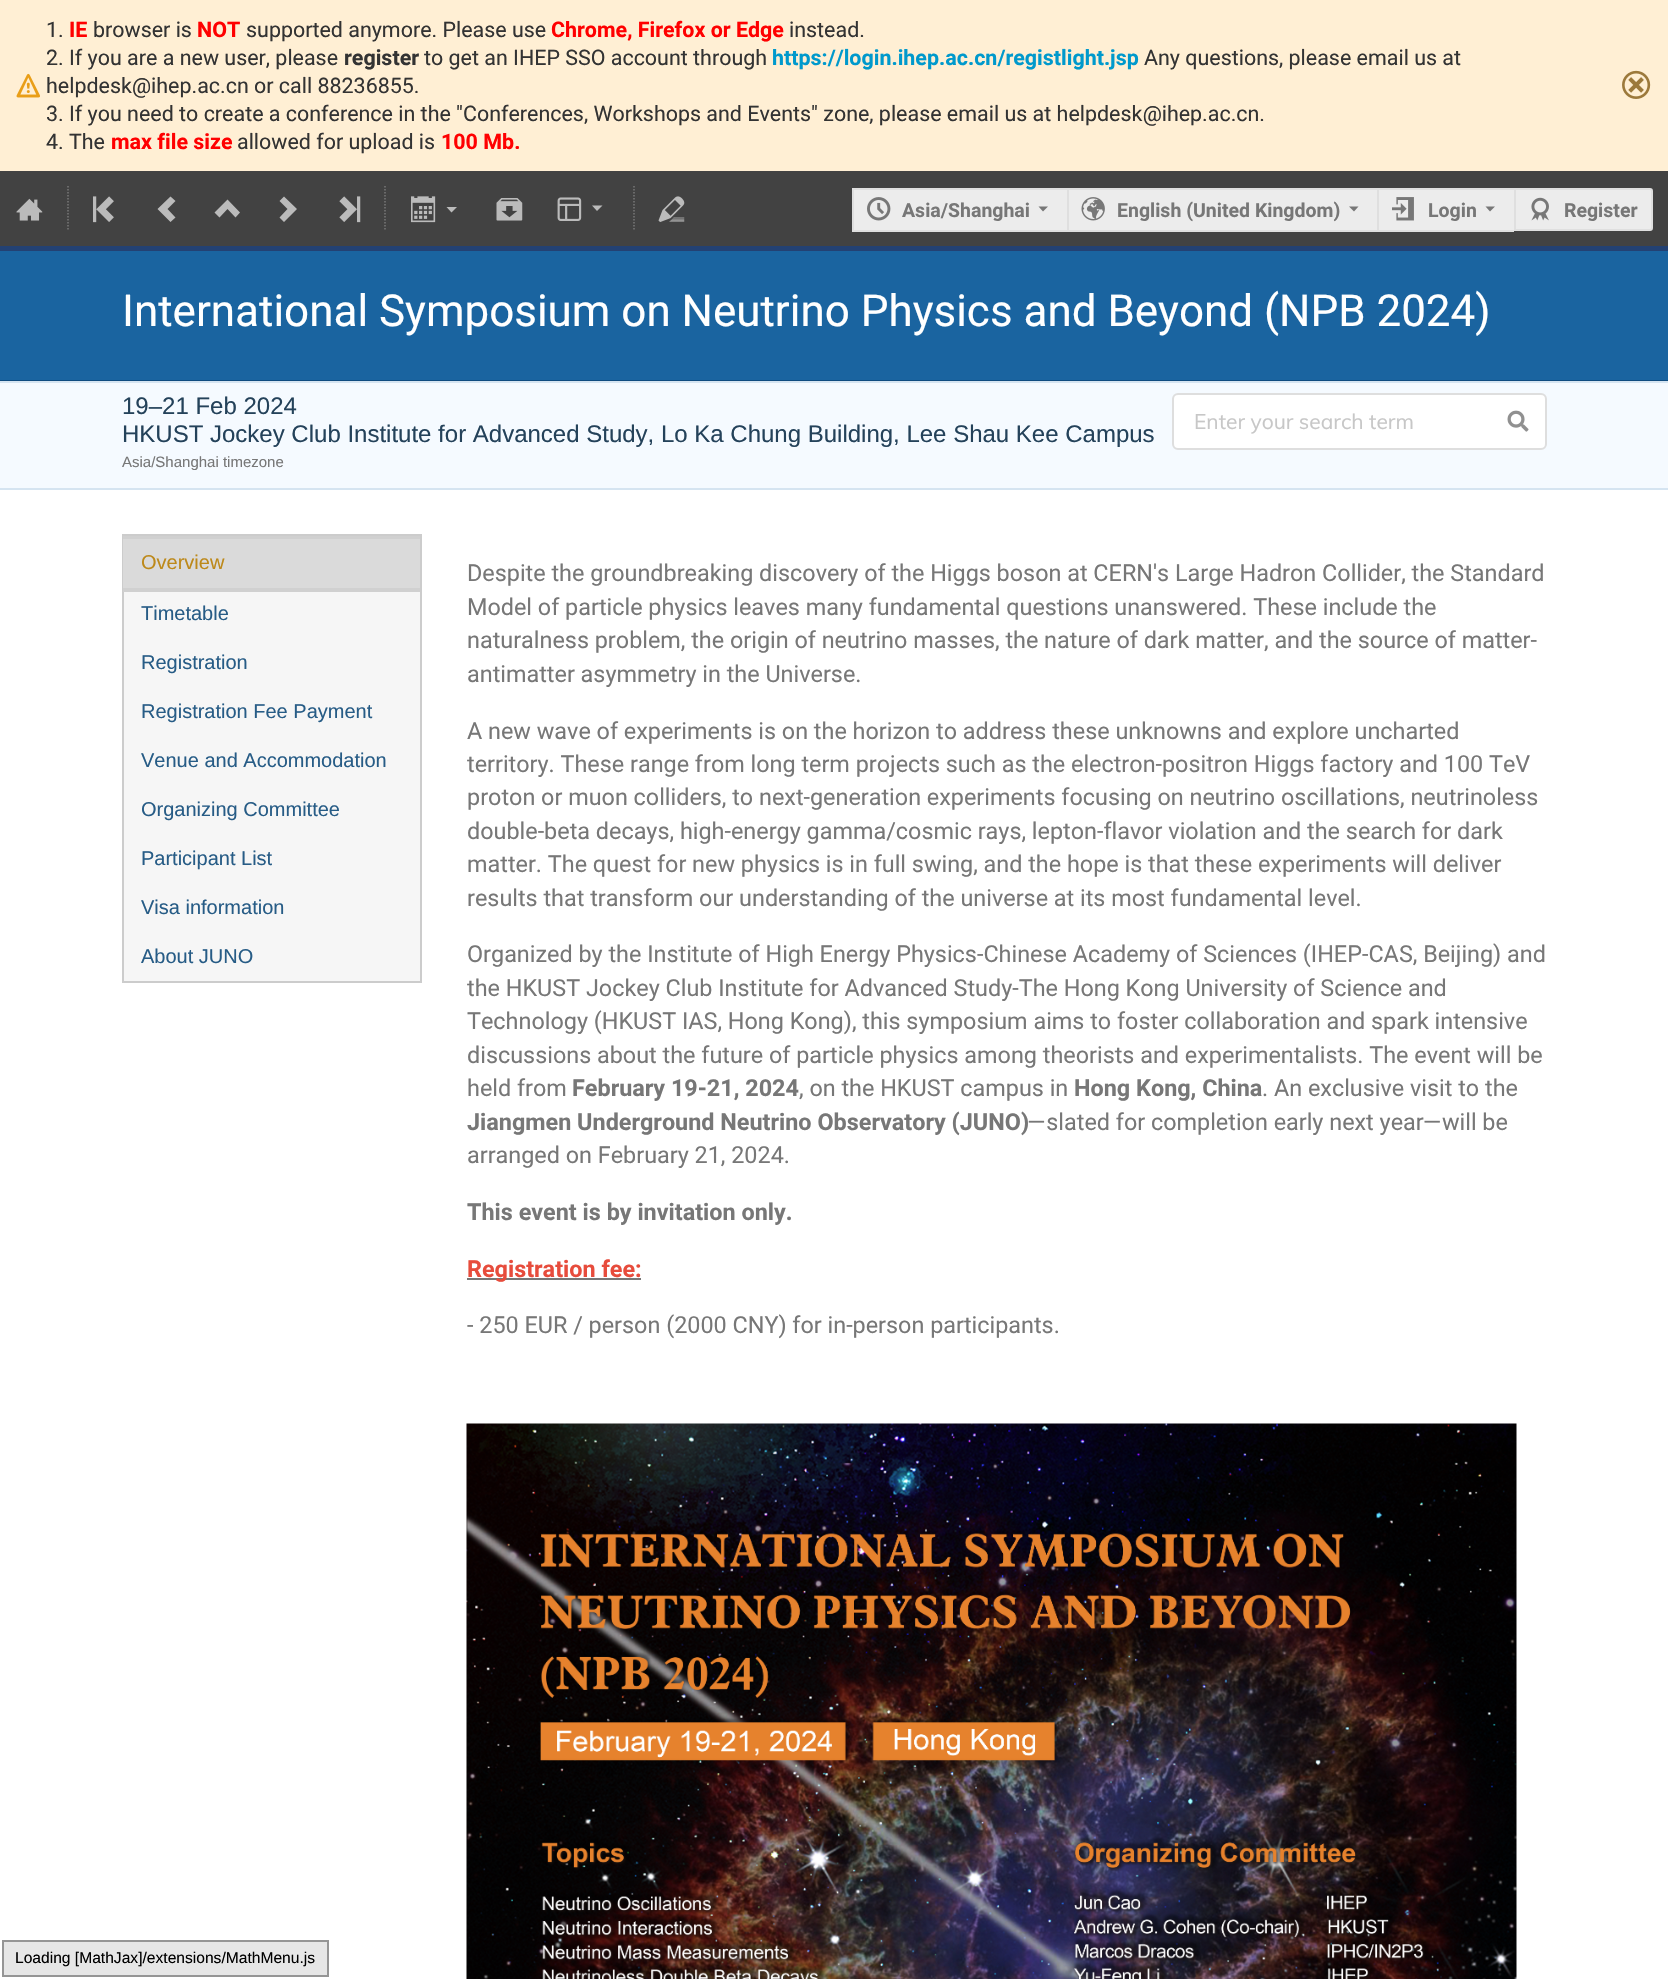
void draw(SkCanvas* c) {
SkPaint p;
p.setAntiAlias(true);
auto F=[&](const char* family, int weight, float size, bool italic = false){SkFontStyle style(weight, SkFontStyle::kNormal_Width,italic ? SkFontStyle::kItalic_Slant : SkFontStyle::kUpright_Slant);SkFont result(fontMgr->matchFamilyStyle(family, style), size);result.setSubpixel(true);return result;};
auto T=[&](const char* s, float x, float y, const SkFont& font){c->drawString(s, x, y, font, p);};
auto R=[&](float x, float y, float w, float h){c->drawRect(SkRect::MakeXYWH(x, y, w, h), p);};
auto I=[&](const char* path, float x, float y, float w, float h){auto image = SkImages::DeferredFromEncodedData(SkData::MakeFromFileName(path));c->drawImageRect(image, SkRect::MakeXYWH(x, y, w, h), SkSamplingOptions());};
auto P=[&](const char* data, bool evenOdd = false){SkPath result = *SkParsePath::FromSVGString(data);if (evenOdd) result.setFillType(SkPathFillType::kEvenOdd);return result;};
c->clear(0xffffffff);
p.setColor(0xffffefd4);
R(0,0,1668,171);
I("1.png",16,73,24,25);
auto f1 = F("Roboto",400,21.45);
p.setColor(0xff333333);
T("1.",46,37,f1);
auto f2 = F("Roboto",700,21.45);
p.setColor(0xffff0000);
T("IE",69,37,f2);
p.setColor(0xff333333);
T("browser is",93,37,f1);
p.setColor(0xffff0000);
T("NOT",197,37,f2);
p.setColor(0xff333333);
T("supported anymore. Please use",246,37,f1);
p.setColor(0xffff0000);
T("Chrome, Firefox or Edge",551,37,f2);
p.setColor(0xff333333);
T("instead.",789,37,f1);
T("2. If you are a new user, please",46,65,f1);
T("register",344,65,f2);
T("to get an IHEP SSO account through",424,65,f1);
p.setColor(0xff0099cc);
T("https://login.ihep.ac.cn/registlight.jsp",772,65,f2);
p.setColor(0xff333333);
T("Any questions, please email us at",1144,65,f1);
T("helpdesk@ihep.ac.cn or call 88236855.",46,93,f1);
T("3. If you need to create a conference in the \"Conferences, Workshops and Events\" zone, please email us at helpdesk@ihep.ac.cn.",46,121,f1);
T("4. The",46,149,f1);
p.setColor(0xffff0000);
T("max file size",111,149,f2);
p.setColor(0xff333333);
T("allowed for upload is",237,149,f1);
p.setColor(0xffff0000);
T("100 Mb.",441,149,f2);
I("2.png",1622,70,29,29);
p.setColor(0xff424242);
R(0,171,1668,75);
I("3.png",16,198,27,23);
p.setStroke(true);
p.setStrokeWidth(1.5);
p.setColor(0xff777777);
p.setPathEffect(SkDashPathEffect::Make({{1.5f,1.5f}}, 0));
c->drawPath(P("M68 186v45"),p);
p.setPathEffect(nullptr);
I("4.png",93,196,21,27);
p.setStroke(false);
p.setColor(0xffbbbbbb);
c->drawPath(P("M170.5 222l5-4.5l-8-8.5l8-8l-5-4.5l-13 12.5z"),p);
c->drawPath(P("M214.5 212.5l5 5l8-8.5l8 8.5l4.5-5l-12.5-13z"),p);
c->drawPath(P("M284 196.5l-4.5 4.5l8 8l-8 8.5l4.5 4.5l13-13z"),p);
I("5.png",339,196,22,27);
p.setStroke(true);
p.setColor(0xff777777);
p.setPathEffect(SkDashPathEffect::Make({{1.5f,1.5f}}, 0));
c->drawPath(P("M385 186v45"),p);
p.setPathEffect(nullptr);
I("6.png",411,196,25,27);
p.setStroke(false);
p.setColor(0xffbbbbbb);
c->drawPath(P("M446.5 207l5 5.5l5.5-5.5z"),p);
I("7.png",496,198,27,23);
I("8.png",557,197,25,24);
c->drawPath(P("M592 205.5l5 5.5l5.5-5.5z"),p);
p.setStroke(true);
p.setColor(0xff777777);
p.setPathEffect(SkDashPathEffect::Make({{1.5f,1.5f}}, 0));
c->drawPath(P("M634 186v45"),p);
p.setPathEffect(nullptr);
I("9.png",658,196,27,26);
p.setStroke(false);
p.setColor(0xffececec);
R(854,190,213,40);
p.setColor(0xffdfdfdf);
R(852,188,662,2);
R(852,230,662,2);
R(852,188,2,43);
I("10.png",867,197,24,24);
auto f3 = F("Roboto",700,19.5);
p.setColor(0xff777777);
T("Asia/Shanghai",902,217,f3);
c->drawPath(P("M1038.5 206.5l4.5 5l5-5z"),p);
p.setColor(0xffececec);
R(1069,190,308,40);
p.setColor(0xffdfdfdf);
R(1067,188,2,43);
I("11.png",1081,197,24,24);
p.setColor(0xff777777);
T("English (United Kingdom)",1117,217,f3);
c->drawPath(P("M1349 206.5l5 5l4.5-5z"),p);
p.setColor(0xffececec);
R(1379,190,135,40);
p.setColor(0xffdfdfdf);
R(1377,188,2,43);
I("12.png",1392,197,22,24);
p.setColor(0xff777777);
T("Login",1428,217,f3);
c->drawPath(P("M1485.5 206.5l4.5 5l5-5z"),p);
p.setColor(0xffececec);
c->drawPath(P("M1515 189h135c1 0 2 1 2 2v37c0 1-1 2-2 2h-135z"),p);
p.setStroke(true);
p.setStrokeWidth(2);
p.setColor(0xffdfdfdf);
c->drawPath(P("M1515 189h135c1 0 2 1 2 2v37c0 1-1 2-2 2h-135z"),p);
I("13.png",1531,197,18,24);
p.setStroke(false);
p.setColor(0xff777777);
T("Register",1564,217,f3);
p.setColor(0xff1a64a0);
R(0,251,1668,129);
p.setColor(0xff234173);
R(0,246,1668,5);
p.setColor(0xff0f4c80);
R(0,380,1668,1);
auto f4 = F("Roboto",400,44);
p.setColor(0xffffffff);
T("International Symposium on Neutrino Physics and Beyond (NPB 2024)",122,326,f4);
p.setColor(0xfff5faff);
R(0,383,1668,105);
p.setColor(0xffd5e4f1);
R(0,381,1668,2);
R(0,488,1668,2);
auto f5 = F("Liberation Sans",400,24);
p.setColor(0xff24425a);
T("19–21 Feb 2024",122,414,f5);
T("HKUST Jockey Club Institute for Advanced Study, Lo Ka Chung Building, Lee Shau Kee Campus",122,442,f5);
auto f6 = F("Liberation Sans",400,15);
p.setColor(0xff777777);
T("Asia/Shanghai timezone",122,467,f6);
p.setColor(0xffffffff);
c->drawRoundRect(SkRect::MakeXYWH(1173,394,373,55),5,5,p);
p.setStroke(true);
p.setColor(0xffdedede);
c->drawRoundRect(SkRect::MakeXYWH(1173,394,373,55),5,5,p);
auto f7 = F("Mulish",400,21);
p.setStroke(false);
p.setColor(0xffc7c7c7);
T("Enter your search term",1194,429,f7);
I("14.png",1507,410,22,22);
p.setColor(0xfff6f6f6);
R(124,592,296,389);
p.setStroke(true);
p.setColor(0xffcccccc);
c->drawRect(SkRect::MakeXYWH(123,535,298,447),p);
p.setStroke(false);
p.setColor(0xffd0d0d0);
R(123,536,297,3);
R(123,588,297,4);
p.setColor(0xffdadada);
R(123,539,297,49);
auto f8 = F("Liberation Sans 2",400,20);
p.setColor(0xffbd891a);
T("Overview",141,569,f8);
p.setColor(0xff275c86);
T("Timetable",141,620,f8);
T("Registration",141,669,f8);
T("Registration Fee Payment",141,718,f8);
T("Venue and Accommodation",141,767,f8);
T("Organizing Committee",141,816,f8);
T("Participant List",141,865,f8);
T("Visa information",141,914,f8);
T("About JUNO",141,963,f8);
auto f9 = F("Roboto",400,23.4);
p.setColor(0xff777777);
T("Despite the groundbreaking discovery of the Higgs boson at CERN's Large Hadron Collider, the Standard",467,581,f9);
T("Model of particle physics leaves many fundamental questions unanswered. These include the",467,615,f9);
T("naturalness problem, the origin of neutrino masses, the nature of dark matter, and the source of matter-",467,648,f9);
T("antimatter asymmetry in the Universe.",467,682,f9);
T("A new wave of experiments is on the horizon to address these unknowns and explore uncharted",467,739,f9);
T("territory. These range from long term projects such as the electron-positron Higgs factory and 100 TeV",467,772,f9);
T("proton or muon colliders, to next-generation experiments focusing on neutrino oscillations, neutrinoless",467,805,f9);
T("double-beta decays, high-energy gamma/cosmic rays, lepton-flavor violation and the search for dark",467,839,f9);
T("matter. The quest for new physics is in full swing, and the hope is that these experiments will deliver",467,872,f9);
T("results that transform our understanding of the universe at its most fundamental level.",467,906,f9);
T("Organized by the Institute of High Energy Physics-Chinese Academy of Sciences (IHEP-CAS, Beijing) and",467,962,f9);
T("the HKUST Jockey Club Institute for Advanced Study-The Hong Kong University of Science and",467,996,f9);
T("Technology (HKUST IAS, Hong Kong), this symposium aims to foster collaboration and spark intensive",467,1029,f9);
T("discussions about the future of particle physics among theorists and experimentalists. The event will be",467,1063,f9);
T("held from",467,1096,f9);
auto f10 = F("Roboto",700,23.4);
T("February 19-21, 2024",572,1096,f10);
T(", on the HKUST campus in",799,1096,f9);
T("Hong Kong, China",1074,1096,f10);
T(". An exclusive visit to the",1262,1096,f9);
T("Jiangmen Underground Neutrino Observatory (JUNO)",467,1130,f10);
T("—slated for completion early next year—will be",1028,1130,f9);
T("arranged on February 21, 2024.",467,1163,f9);
T("This event is by invitation only.",467,1220,f10);
R(467,1278,174,2);
p.setColor(0xffe74c3c);
T("Registration fee:",467,1277,f10);
p.setColor(0xff777777);
T("- 250 EUR / person (2000 CNY) for in-person participants.",467,1333,f9);
I("15.png",466,1423,1051,556);
p.setColor(0xffe6e6e6);
c->drawRect(SkRect::MakeXYWH(3,1941,325,35),p);
p.setStroke(true);
p.setColor(0xff959595);
c->drawRect(SkRect::MakeXYWH(3,1941,325,35),p);
auto f11 = F("Liberation Sans",400,15.6);
p.setStroke(false);
p.setColor(0xff000000);
T("Loading [MathJax]/extensions/MathMenu.js",15,1963,f11);
}
